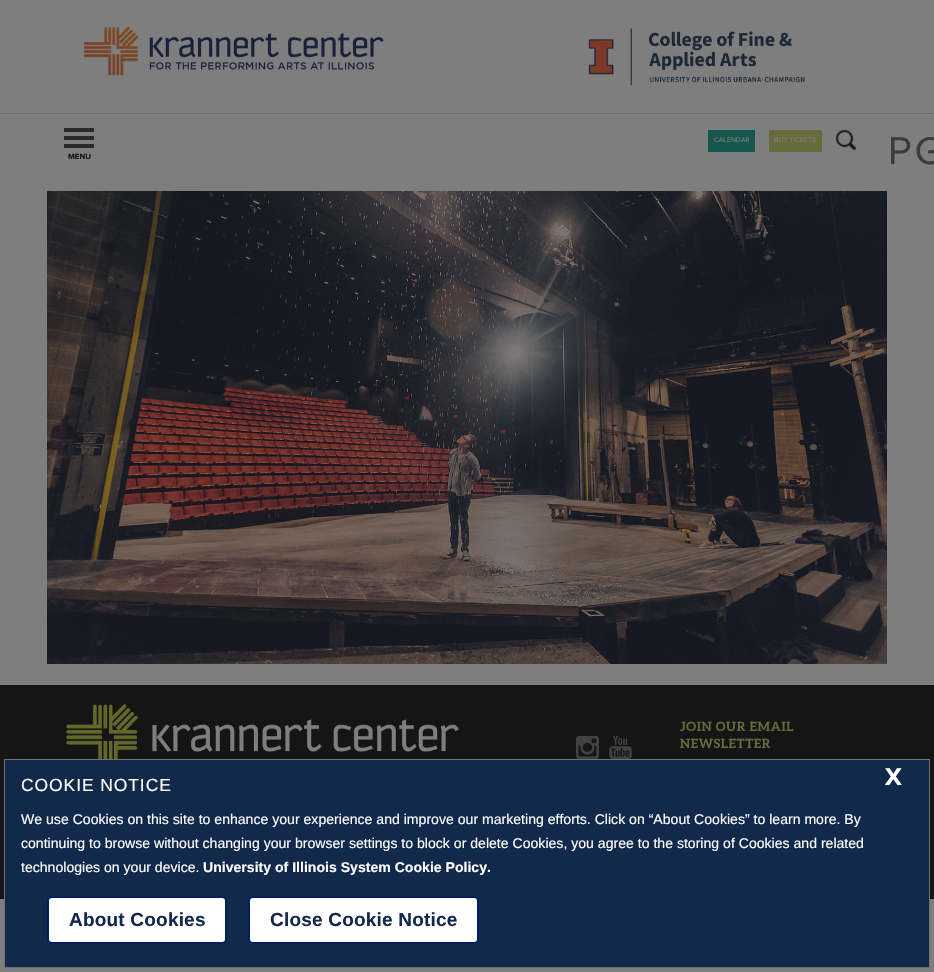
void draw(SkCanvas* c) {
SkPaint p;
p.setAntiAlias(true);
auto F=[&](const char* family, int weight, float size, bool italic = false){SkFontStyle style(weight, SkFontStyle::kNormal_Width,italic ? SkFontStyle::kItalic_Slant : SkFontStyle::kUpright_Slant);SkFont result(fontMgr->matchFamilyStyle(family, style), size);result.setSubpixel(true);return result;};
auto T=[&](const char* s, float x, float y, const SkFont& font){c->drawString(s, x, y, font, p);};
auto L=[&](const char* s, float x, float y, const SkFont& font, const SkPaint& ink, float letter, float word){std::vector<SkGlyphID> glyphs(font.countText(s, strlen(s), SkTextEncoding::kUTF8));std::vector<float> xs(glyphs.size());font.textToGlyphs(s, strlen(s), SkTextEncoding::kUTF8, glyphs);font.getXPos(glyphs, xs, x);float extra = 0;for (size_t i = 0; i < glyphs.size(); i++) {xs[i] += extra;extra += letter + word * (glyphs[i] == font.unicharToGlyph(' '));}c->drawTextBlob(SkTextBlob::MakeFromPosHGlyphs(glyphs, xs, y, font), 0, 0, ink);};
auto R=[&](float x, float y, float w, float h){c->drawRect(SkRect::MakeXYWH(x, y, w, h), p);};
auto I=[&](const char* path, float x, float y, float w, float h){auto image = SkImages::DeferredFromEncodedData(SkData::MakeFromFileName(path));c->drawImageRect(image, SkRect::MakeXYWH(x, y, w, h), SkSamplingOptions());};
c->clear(0xff7e7e7e);
p.setColor(0xff707070);
R(0,113,934,1);
I("1.png",83,26,301,50);
I("2.png",588,28,217,58);
p.setColor(0xff15574e);
R(708,130,47,22);
auto f1 = F("Proxima Nova",400,7);
p.setColor(0xff7e7e7e);
T("CALENDAR",714,142,f1);
p.setColor(0xff676b3b);
R(769,130,53,22);
p.setColor(0xff7e7e7e);
T("BUY TICKETS",774,142,f1);
I("3.png",835,129,21,21);
p.setColor(0xff2a2a2a);
R(64,128,30,4);
R(64,136,30,4);
R(64,144,30,4);
auto f2 = F("Proxima Nova",700,8);
p.setColor(0xff151515);
T("MENU",68,159,f2);
auto f3 = F("Proxima Nova",400,40);
p.setColor(0xff3a3a3a);
L("PG",888,164,f3,p,3,0);
I("4.png",47,191,840,473);
p.setColor(0xff151515);
R(0,685,934,214);
I("5.png",66,704,393,55);
I("6.png",576,736,23,23);
I("7.png",609,736,23,23);
auto f4 = F("Aleo",700,12.75);
p.setColor(0xff676b3b);
L("JOIN OUR EMAIL",680,731,f4,p,.6,0);
L("NEWSLETTER",680,748,f4,p,.6,0);
p.setColor(0xff13294b);
c->drawRect(SkRect::MakeXYWH(4.5,759.5,925,208),p);
p.setStroke(true);
p.setStrokeWidth(1);
p.setColor(0xff707070);
c->drawRect(SkRect::MakeXYWH(4.5,759.5,925,208),p);
auto f5 = F("Liberation Sans",400,17.5);
p.setStroke(false);
p.setColor(0xffffffff);
L("COOKIE NOTICE",21,791,f5,p,.9,0);
auto f6 = F("Proxima Nova",700,25);
T("X",885,785,f6);
auto f7 = F("Liberation Sans",400,14.08);
T("We use Cookies on this site to enhance your experience and improve our marketing efforts. Click on “About Cookies” to learn more. By",21,824,f7);
T("continuing to browse without changing your browser settings to block or delete Cookies, you agree to the storing of Cookies and related",21,848,f7);
T("technologies on your device.",21,872,f7);
auto f8 = F("Liberation Sans",700,14.08);
T("University of Illinois System Cookie Policy.",203,872,f8);
c->drawRoundRect(SkRect::MakeXYWH(48,897,178,46),4,4,p);
p.setStroke(true);
p.setStrokeWidth(2);
p.setColor(0xff001e62);
c->drawRoundRect(SkRect::MakeXYWH(48,897,178,46),4,4,p);
auto f9 = F("Liberation Sans",700,19);
p.setStroke(false);
p.setColor(0xff13294b);
L("About Cookies",69,926,f9,p,.2,0);
p.setColor(0xffffffff);
c->drawRoundRect(SkRect::MakeXYWH(249,897,229,46),4,4,p);
p.setStroke(true);
p.setColor(0xff001e62);
c->drawRoundRect(SkRect::MakeXYWH(249,897,229,46),4,4,p);
p.setStroke(false);
p.setColor(0xff13294b);
L("Close Cookie Notice",270,926,f9,p,.2,0);
}
